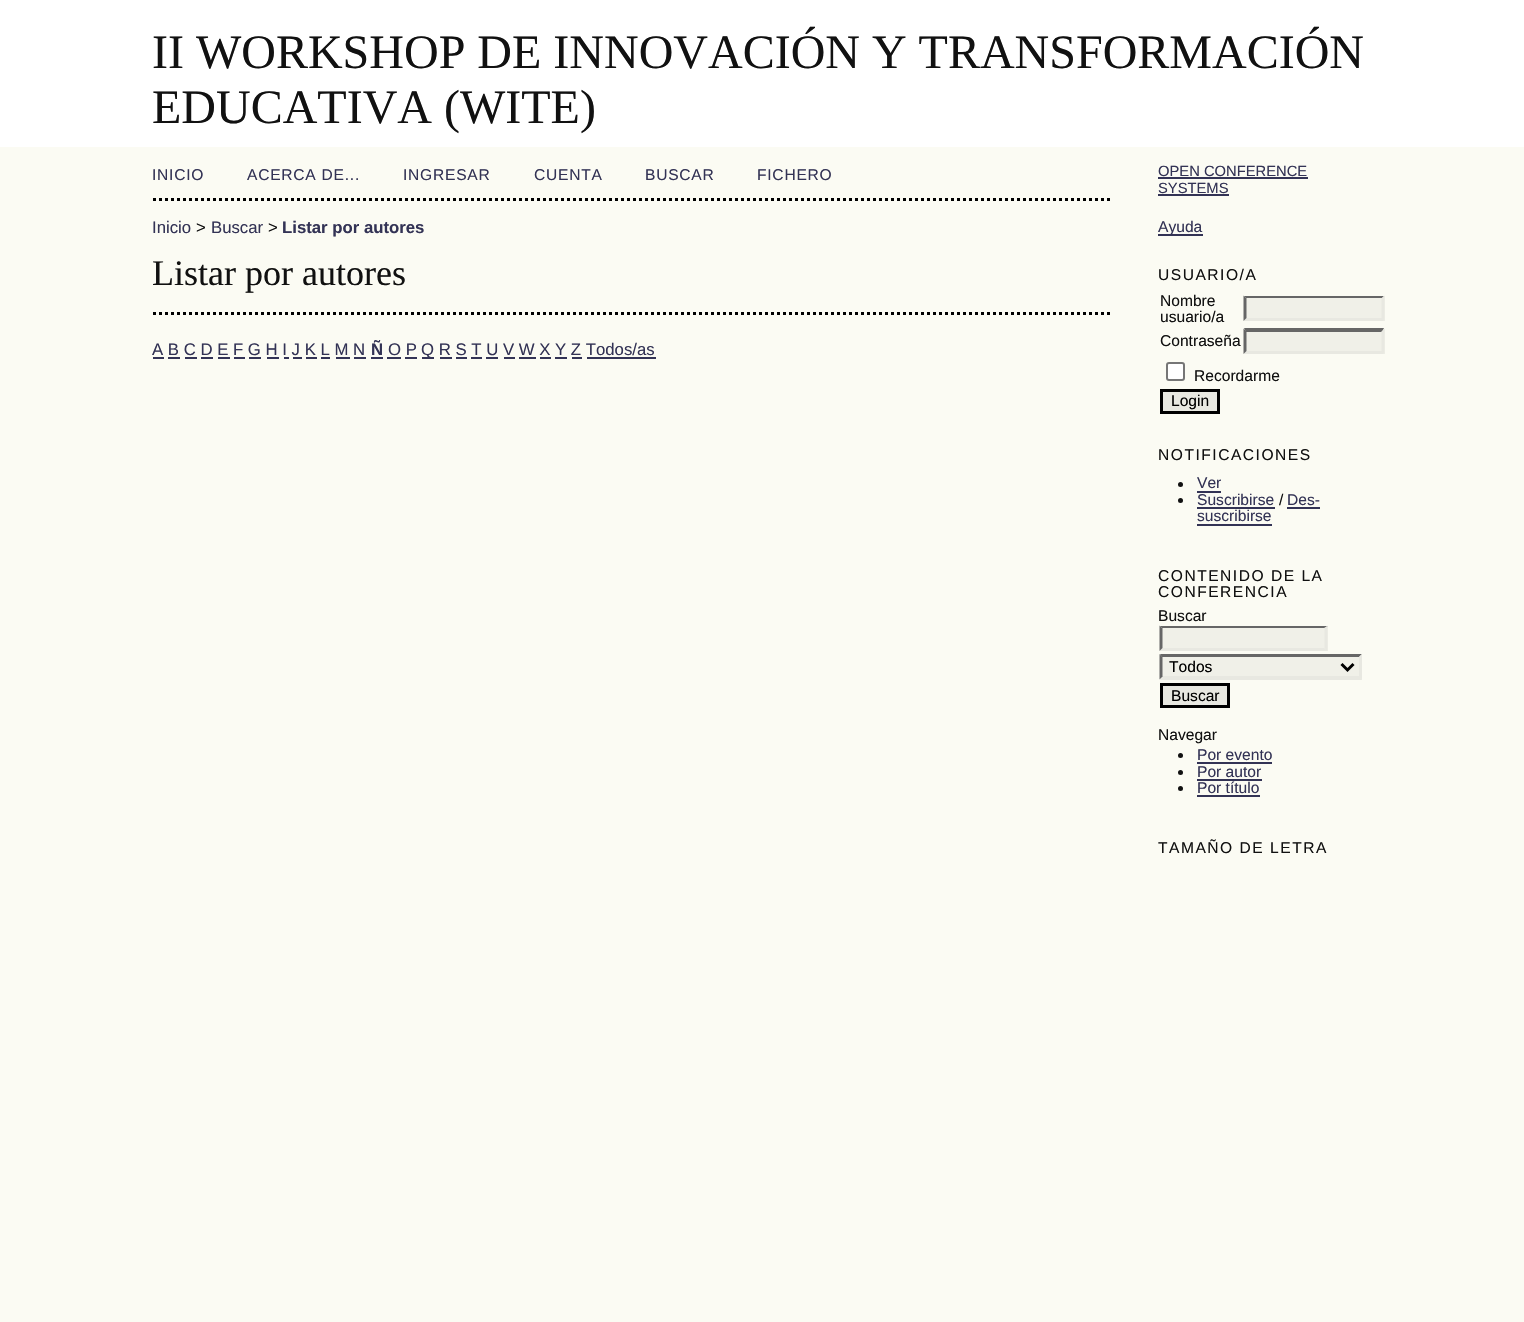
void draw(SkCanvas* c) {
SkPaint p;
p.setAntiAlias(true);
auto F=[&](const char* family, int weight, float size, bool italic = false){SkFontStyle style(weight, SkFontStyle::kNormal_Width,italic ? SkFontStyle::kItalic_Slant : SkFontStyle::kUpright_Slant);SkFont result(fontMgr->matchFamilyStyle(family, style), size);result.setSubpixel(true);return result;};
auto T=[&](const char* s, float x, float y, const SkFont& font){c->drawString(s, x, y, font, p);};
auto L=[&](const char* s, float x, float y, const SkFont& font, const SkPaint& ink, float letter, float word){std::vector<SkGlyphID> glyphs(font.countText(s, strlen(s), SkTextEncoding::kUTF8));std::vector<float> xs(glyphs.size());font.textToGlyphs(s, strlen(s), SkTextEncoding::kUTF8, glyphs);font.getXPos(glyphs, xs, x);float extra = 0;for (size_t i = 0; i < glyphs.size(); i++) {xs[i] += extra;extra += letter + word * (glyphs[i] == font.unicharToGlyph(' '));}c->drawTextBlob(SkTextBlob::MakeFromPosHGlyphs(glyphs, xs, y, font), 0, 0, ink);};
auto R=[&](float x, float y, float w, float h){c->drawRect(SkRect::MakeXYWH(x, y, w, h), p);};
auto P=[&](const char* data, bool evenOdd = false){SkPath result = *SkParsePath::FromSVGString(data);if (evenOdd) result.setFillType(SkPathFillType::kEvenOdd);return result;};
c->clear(0xfffbfbf3);
p.setColor(0xffffffff);
R(0,0,1524,147);
auto f1 = F("Liberation Serif",400,48);
p.setColor(0xff111111);
T("II WORKSHOP DE INNOVACIÓN Y TRANSFORMACIÓN",152,68,f1);
T("EDUCATIVA (WITE)",152,123,f1);
p.setStroke(true);
p.setStrokeWidth(3);
p.setColor(0xff000000);
p.setPathEffect(SkDashPathEffect::Make({{3,3}}, 0));
c->drawPath(P("M153 199.5h960"),p);
p.setPathEffect(nullptr);
auto f2 = F("Liberation Sans",400,15.6);
p.setStroke(false);
p.setColor(0xff333355);
L("INICIO",152,180,f2,p,.75,0);
L("ACERCA DE...",247,180,f2,p,.75,0);
L("INGRESAR",403,180,f2,p,.75,0);
L("CUENTA",534,180,f2,p,.75,0);
L("BUSCAR",645,180,f2,p,.75,0);
L("FICHERO",757,180,f2,p,.75,0);
auto f3 = F("Liberation Sans",400,16.75);
T("Inicio",152,233,f3);
p.setColor(0xff111111);
T(">",196,233,f3);
p.setColor(0xff333355);
T("Buscar",211,233,f3);
p.setColor(0xff111111);
T(">",268,233,f3);
auto f4 = F("Liberation Sans",700,16.75);
p.setColor(0xff333355);
T("Listar por autores",282,233,f4);
auto f5 = F("Liberation Serif",400,36);
p.setColor(0xff111111);
T("Listar por autores",152,285,f5);
p.setStroke(true);
p.setColor(0xff000000);
p.setPathEffect(SkDashPathEffect::Make({{3,3}}, 0));
c->drawPath(P("M153 313.5h960"),p);
p.setPathEffect(nullptr);
p.setStroke(false);
p.setColor(0xff333355);
T("A B C D E F G H I J K L M N",152,355,f3);
R(153,357,11,2);
T("Ñ",371,355,f4);
R(371,357,12,2);
T("O P",388,355,f3);
R(387,357,14,2);
R(422,357,12,2);
T("Q R S T U V W X Y Z Todos/as",421,355,f3);
R(168,357,12,2);
R(185,357,12,2);
R(201,357,12,2);
R(218,357,12,2);
R(234,357,11,2);
R(249,357,12,2);
R(267,357,12,2);
R(284,357,5,2);
R(293,357,9,2);
R(306,357,11,2);
R(321,357,9,2);
R(336,357,14,2);
R(354,357,12,2);
R(405,357,12,2);
R(440,357,12,2);
R(456,357,11,2);
R(471,357,11,2);
R(486,357,12,2);
R(504,357,11,2);
R(519,357,17,2);
R(540,357,11,2);
R(555,357,12,2);
R(572,357,10,2);
R(587,357,69,2);
auto f6 = F("Liberation Sans",400,14.75);
T("OPEN CONFERENCE",1158,176,f6);
R(1158,177,150,2);
T("SYSTEMS",1158,193,f6);
R(1158,194,71,2);
R(1158,234,45,2);
T("Ayuda",1158,232,f2);
p.setColor(0xff111111);
L("USUARIO/A",1158,280,f2,p,1.5,0);
T("Nombre",1160,306,f2);
T("usuario/a",1160,322,f2);
p.setColor(0xfff0f0e8);
R(1244,296,141,25);
p.setColor(0xff666666);
c->drawPath(P("M1244 296h140l-2 2h-136z"),p);
p.setColor(0xffe8e8e1);
c->drawPath(P("M1384.5 295.5v25.5l-3-3v-19.5z"),p);
c->drawPath(P("M1384 321h-140l2-3h136z"),p);
p.setColor(0xff666666);
c->drawPath(P("M1243.5 321v-25.5l3 3v19.5z"),p);
p.setColor(0xff111111);
T("Contraseña",1160,346,f2);
p.setColor(0xfff0f0e8);
R(1244,329,141,25);
p.setColor(0xff666666);
c->drawPath(P("M1244 328h140l-2 4h-136z"),p);
p.setColor(0xffe8e8e1);
c->drawPath(P("M1384.5 328.5v25.5l-3-3v-19.5z"),p);
c->drawPath(P("M1384 354h-140l2-3h136z"),p);
p.setColor(0xff666666);
c->drawPath(P("M1243.5 354v-25.5l3 3v19.5z"),p);
p.setColor(0xffffffff);
c->drawRoundRect(SkRect::MakeXYWH(1167,363,17,17),2,2,p);
p.setStroke(true);
p.setStrokeWidth(2);
p.setColor(0xff767676);
c->drawRoundRect(SkRect::MakeXYWH(1167,363,17,17),2,2,p);
p.setStroke(false);
p.setColor(0xff111111);
T("Recordarme",1194,381,f2);
p.setColor(0xffe8e8e1);
c->drawRect(SkRect::MakeXYWH(1161.5,390.5,57,22),p);
p.setStroke(true);
p.setStrokeWidth(3);
p.setColor(0xff000000);
c->drawRect(SkRect::MakeXYWH(1161.5,390.5,57,22),p);
p.setStroke(false);
T("Login",1171,406,f2);
p.setColor(0xff111111);
L("NOTIFICACIONES",1158,460,f2,p,1.5,0);
c->drawCircle(1180.5,484.5,2.5,p);
p.setColor(0xff333355);
T("Ver",1197,488,f2);
R(1197,491,24,2);
p.setColor(0xff111111);
c->drawCircle(1180.5,500.5,2.5,p);
p.setColor(0xff333355);
T("Suscribirse",1197,505,f2);
R(1197,507,78,2);
p.setColor(0xff111111);
T("/",1279,505,f2);
p.setColor(0xff333355);
T("Des-",1287,505,f2);
R(1287,507,33,2);
T("suscribirse",1197,521,f2);
R(1197,524,75,2);
p.setColor(0xff111111);
L("CONTENIDO DE LA",1158,581,f2,p,1.5,0);
L("CONFERENCIA",1158,597,f2,p,1.5,0);
T("Buscar",1158,621,f2);
p.setColor(0xfff0f0e8);
R(1160,626,168,25);
p.setColor(0xff666666);
c->drawPath(P("M1160 626h168l-4 2h-162z"),p);
p.setColor(0xffe8e8e1);
c->drawPath(P("M1327.5 625.5v25.5l-3-3v-19.5z"),p);
c->drawPath(P("M1328 651h-168l2-3h162z"),p);
p.setColor(0xff666666);
c->drawPath(P("M1159.5 651v-25.5l3 3v19.5z"),p);
p.setColor(0xfff0f0e8);
R(1160,654,202,26);
p.setColor(0xff666666);
c->drawPath(P("M1160 654h202l-3 3h-197z"),p);
p.setColor(0xffe8e8e1);
c->drawPath(P("M1362 654v25.5l-3-3v-19.5z"),p);
c->drawPath(P("M1362 680h-202l2-4h197z"),p);
p.setColor(0xff666666);
c->drawPath(P("M1159.5 679.5v-25.5l3 3v19.5z"),p);
p.setStroke(true);
p.setColor(0xff000000);
c->drawPath(P("M1341.5 664l6 6l6-6"),p);
p.setStroke(false);
T("Todos",1169,672,f2);
p.setColor(0xffe8e8e1);
c->drawRect(SkRect::MakeXYWH(1161.5,684.5,67,22),p);
p.setStroke(true);
p.setColor(0xff000000);
c->drawRect(SkRect::MakeXYWH(1161.5,684.5,67,22),p);
p.setStroke(false);
T("Buscar",1171,701,f2);
p.setColor(0xff111111);
T("Navegar",1158,740,f2);
c->drawCircle(1180.5,755.5,2.5,p);
p.setColor(0xff333355);
T("Por evento",1197,760,f2);
R(1197,762,75,2);
p.setColor(0xff111111);
c->drawCircle(1180.5,772.5,2.5,p);
p.setColor(0xff333355);
T("Por autor",1197,777,f2);
R(1197,779,65,2);
p.setColor(0xff111111);
c->drawCircle(1180.5,788.5,2.5,p);
p.setColor(0xff333355);
T("Por título",1197,793,f2);
R(1197,795,63,2);
p.setColor(0xff111111);
L("TAMAÑO DE LETRA",1158,853,f2,p,1.5,0);
}
